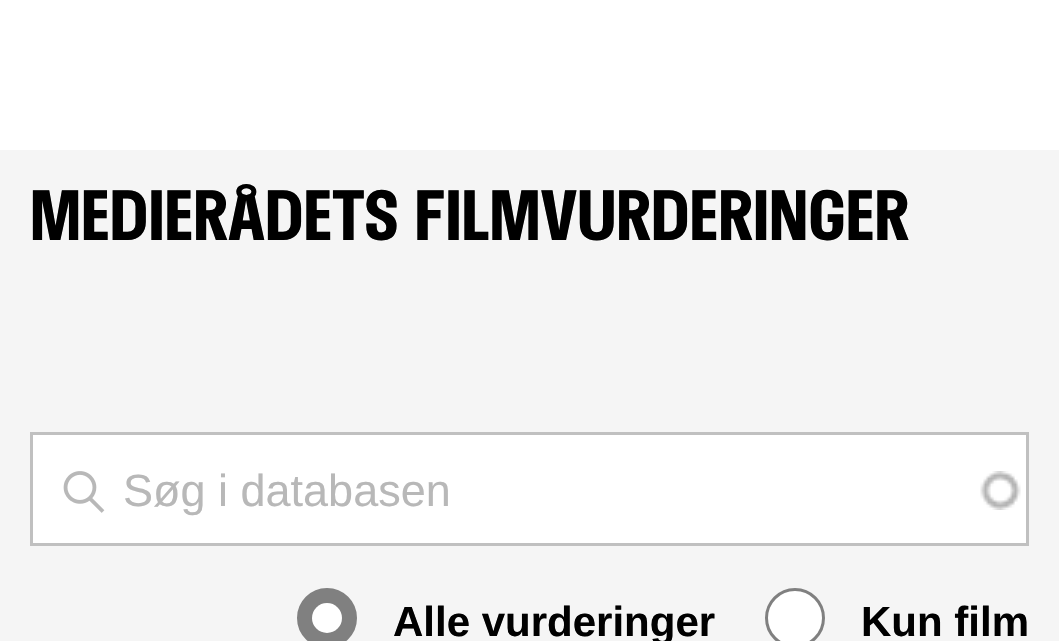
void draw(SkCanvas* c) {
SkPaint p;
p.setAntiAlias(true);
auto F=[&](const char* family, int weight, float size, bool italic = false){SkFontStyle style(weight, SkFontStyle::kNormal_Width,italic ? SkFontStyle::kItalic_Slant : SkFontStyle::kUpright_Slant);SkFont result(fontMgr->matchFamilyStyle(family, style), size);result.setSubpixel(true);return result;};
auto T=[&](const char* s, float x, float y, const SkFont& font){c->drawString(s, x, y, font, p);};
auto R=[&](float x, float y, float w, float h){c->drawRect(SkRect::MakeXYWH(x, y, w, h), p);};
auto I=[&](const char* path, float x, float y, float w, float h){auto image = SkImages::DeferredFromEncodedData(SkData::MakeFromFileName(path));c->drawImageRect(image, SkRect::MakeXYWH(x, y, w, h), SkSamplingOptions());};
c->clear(0xffffffff);
p.setColor(0xfff5f5f5);
R(0,150,1059,491);
auto f1 = F("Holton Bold",700,72);
p.setColor(0xff000000);
T("MEDIERÅDETS FILMVURDERINGER",30,240,f1);
p.setColor(0xffffffff);
R(33,435,993,108);
I("2.png",980,471,41,39);
p.setStroke(true);
p.setStrokeWidth(3);
p.setColor(0xffc0c0c0);
c->drawRect(SkRect::MakeXYWH(31.5,433.5,996,111),p);
I("1.png",63,471,42,42);
auto f2 = F("Liberation Sans",400,45);
p.setStroke(false);
p.setColor(0xffb8b8b8);
T("Søg i databasen",123,506,f2);
p.setColor(0xff808080);
c->drawCircle(327,618,28.5,p);
p.setStroke(true);
c->drawCircle(327,618,28.5,p);
p.setStroke(false);
p.setColor(0xffffffff);
c->drawCircle(327,618,15,p);
auto f3 = F("Liberation Sans",700,42);
p.setColor(0xff000000);
T("Alle vurderinger",393,636,f3);
p.setColor(0xffffffff);
c->drawCircle(795,618,28.5,p);
p.setStroke(true);
p.setColor(0xff808080);
c->drawCircle(795,618,28.5,p);
p.setStroke(false);
p.setColor(0xff000000);
T("Kun film",861,636,f3);
}
